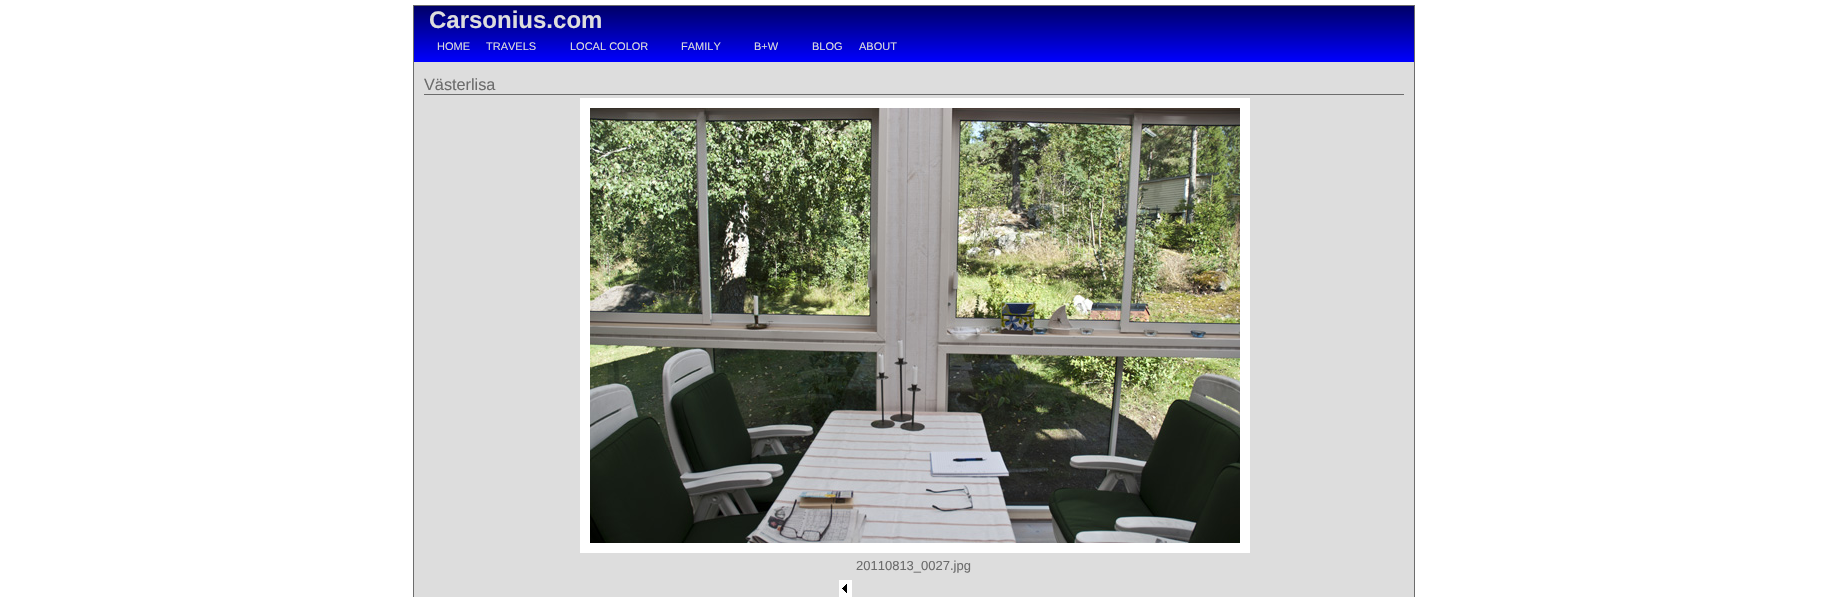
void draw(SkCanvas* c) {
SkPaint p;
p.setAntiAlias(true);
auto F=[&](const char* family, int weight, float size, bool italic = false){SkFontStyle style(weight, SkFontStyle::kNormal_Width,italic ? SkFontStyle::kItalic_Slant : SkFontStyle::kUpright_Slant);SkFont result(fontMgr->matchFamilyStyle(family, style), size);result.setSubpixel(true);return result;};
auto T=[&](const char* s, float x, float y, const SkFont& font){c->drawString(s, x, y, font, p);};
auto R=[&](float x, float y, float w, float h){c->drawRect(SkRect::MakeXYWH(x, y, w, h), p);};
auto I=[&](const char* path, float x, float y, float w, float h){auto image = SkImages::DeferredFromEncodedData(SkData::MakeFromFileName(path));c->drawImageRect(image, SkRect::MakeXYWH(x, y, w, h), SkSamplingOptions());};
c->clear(0xffffffff);
p.setColor(0xffdddddd);
R(414,62,1000,535);
p.setStroke(true);
p.setStrokeWidth(1);
p.setColor(0xff6c6c6c);
c->drawRect(SkRect::MakeXYWH(413.5,5.5,1001,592),p);
p.setStroke(false);
{
const SkColor colors[] = {0xff000066,0xff0000ff};
const float stops[] = {0,1};
const SkPoint ends[] = {{414,6}, {414,62}};
p.setShader(SkGradientShader::MakeLinear(ends, colors, stops, 2, SkTileMode::kClamp));
p.setAlpha(255);
}
R(414,6,1000,56);
auto f1 = F("Liberation Sans",700,24);
p.setShader(nullptr);
p.setColor(0xffdddddd);
T("Carsonius.com",429,28,f1);
auto f2 = F("Liberation Sans",400,11);
T("HOME",437,50,f2);
T("TRAVELS",486,50,f2);
T("LOCAL COLOR",570,50,f2);
T("FAMILY",681,50,f2);
T("B+W",754,50,f2);
T("BLOG",812,50,f2);
T("ABOUT",859,50,f2);
p.setColor(0xff6c6c6c);
R(424,94,980,1);
auto f3 = F("Liberation Sans",400,16.25);
T("Västerlisa",424,90,f3);
p.setColor(0xffffffff);
R(580,98,670,455);
I("1.png",590,108,650,435);
auto f4 = F("Liberation Sans",400,13);
p.setColor(0xff6c6c6c);
T("20110813_0027.jpg",856,570,f4);
I("2.png",839,580,13,17);
}
